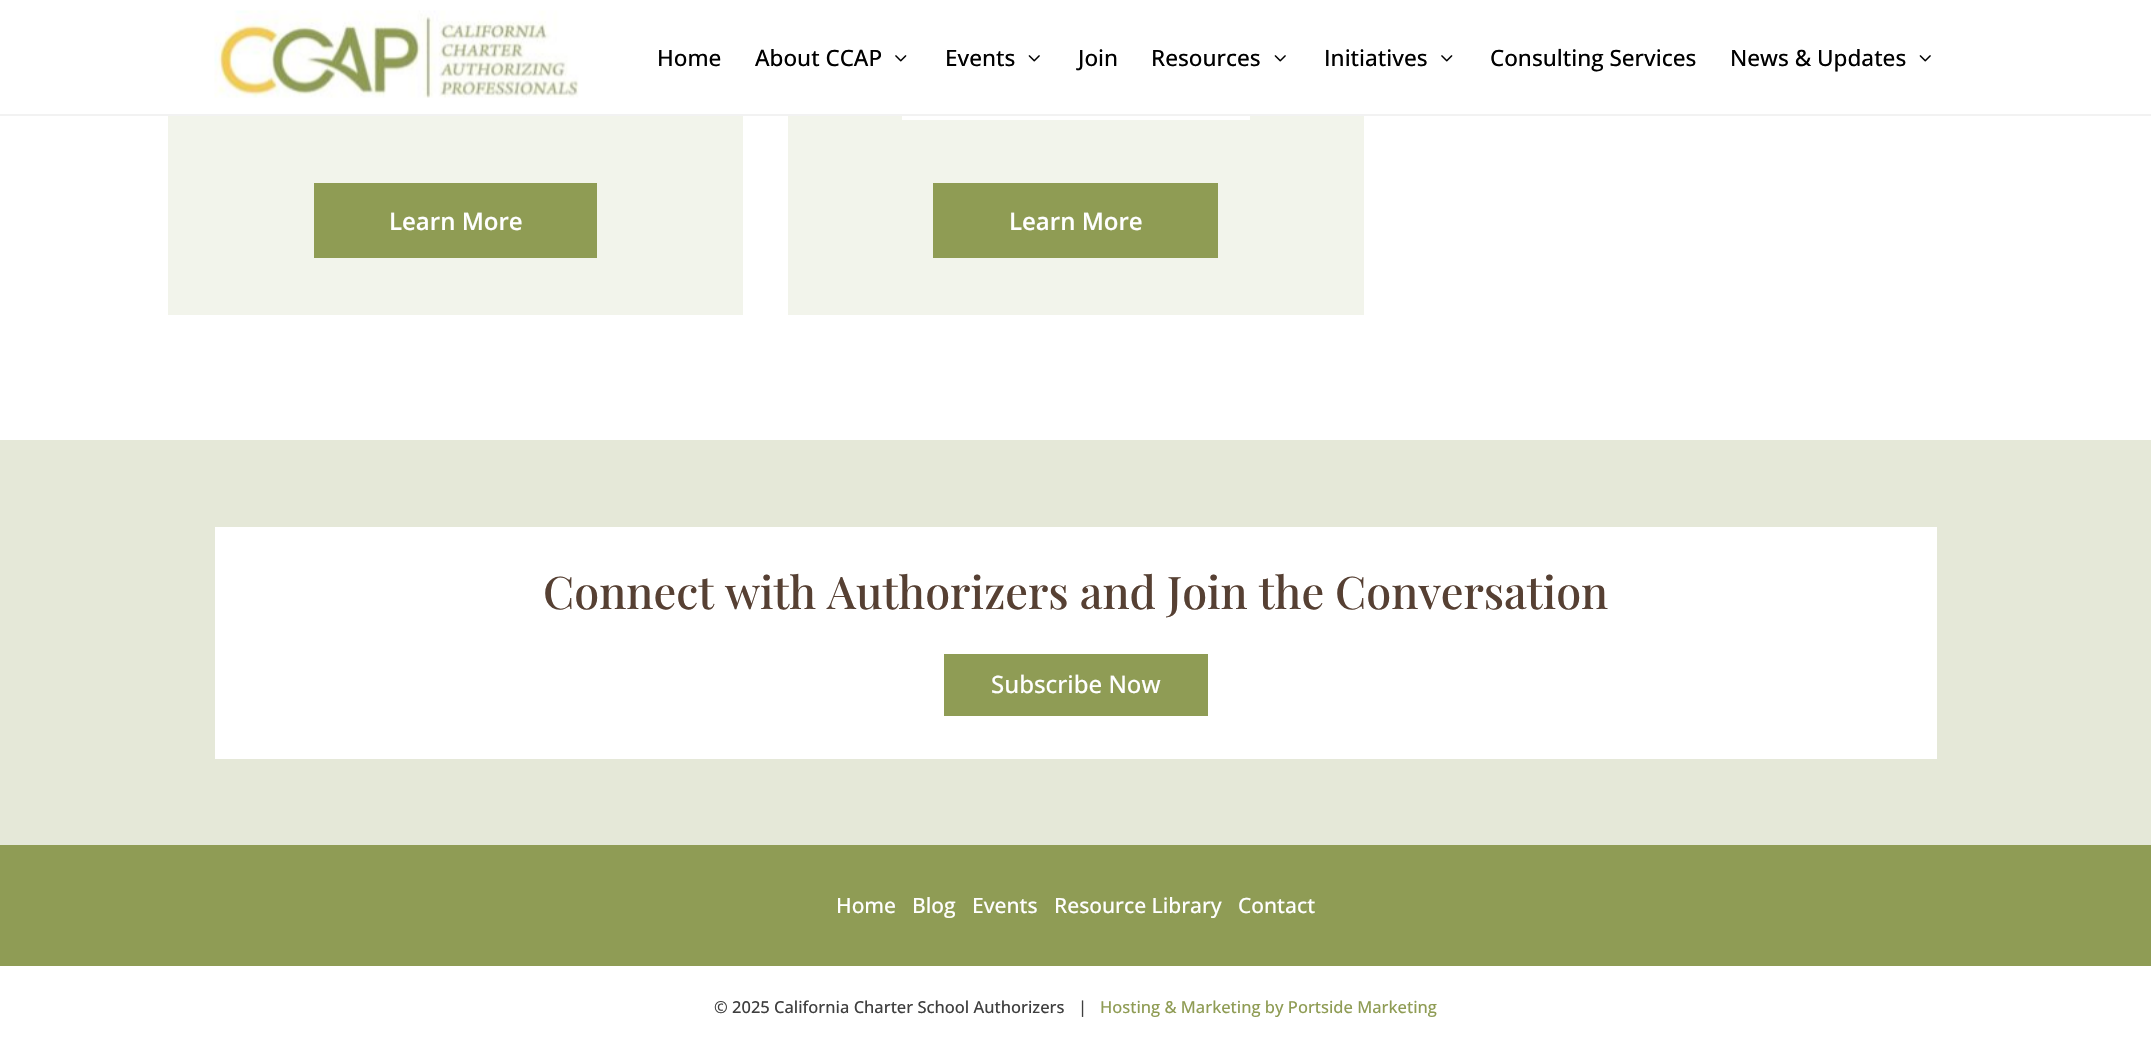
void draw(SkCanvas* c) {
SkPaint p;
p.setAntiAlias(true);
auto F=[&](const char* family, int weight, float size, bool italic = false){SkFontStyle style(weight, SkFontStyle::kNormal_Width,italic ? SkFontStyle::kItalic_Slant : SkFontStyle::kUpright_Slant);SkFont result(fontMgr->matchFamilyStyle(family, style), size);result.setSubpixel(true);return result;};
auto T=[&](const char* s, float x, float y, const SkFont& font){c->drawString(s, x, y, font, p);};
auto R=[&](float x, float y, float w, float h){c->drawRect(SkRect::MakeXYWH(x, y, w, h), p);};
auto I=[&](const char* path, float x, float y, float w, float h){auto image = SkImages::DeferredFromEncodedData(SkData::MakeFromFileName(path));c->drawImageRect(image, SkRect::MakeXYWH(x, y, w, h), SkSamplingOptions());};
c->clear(0xffffffff);
p.setColor(0xfff2f2f2);
R(0,114,2151,2);
I("1.png",214,10,365,88);
auto f1 = F("Open Sans",500,22.5);
p.setColor(0xff000000);
T("Home",657,66,f1);
T("About CCAP",755,66,f1);
I("2.png",895,55,12,7);
T("Events",945,66,f1);
I("3.png",1028,55,12,7);
T("Join",1078,66,f1);
T("Resources",1151,66,f1);
I("3.png",1274,55,12,7);
T("Initiatives",1324,66,f1);
I("2.png",1441,55,12,7);
T("Consulting Services",1490,66,f1);
T("News & Updates",1730,66,f1);
I("3.png",1919,55,12,7);
p.setColor(0xfff2f4eb);
R(168,116,575,199);
p.setColor(0xff8f9c54);
R(314,183,283,75);
auto f2 = F("Open Sans",600,24);
p.setColor(0xffffffff);
T("Learn More",389,230,f2);
p.setColor(0xfff2f4eb);
R(788,116,576,199);
p.setColor(0xffffffff);
R(902,116,348,4);
p.setColor(0xff8f9c54);
R(933,183,285,75);
p.setColor(0xffffffff);
T("Learn More",1009,230,f2);
p.setColor(0xffe5e8d8);
R(0,440,2151,405);
p.setColor(0xffffffff);
R(215,527,1722,232);
auto f3 = F("Playfair Display",500,45);
p.setColor(0xff564033);
T("Connect with Authorizers and Join the Conversation",543,609,f3);
p.setColor(0xff8f9c55);
R(944,654,264,62);
auto f4 = F("Open Sans",500,24);
p.setColor(0xffffffff);
T("Subscribe Now",991,693,f4);
p.setColor(0xff8f9c55);
R(0,845,2151,121);
auto f5 = F("Open Sans",500,21);
p.setColor(0xffffffff);
T("Home",836,913,f5);
T("Blog",912,913,f5);
T("Events",972,913,f5);
T("Resource Library",1054,913,f5);
T("Contact",1238,913,f5);
auto f6 = F("Open Sans",500,16.5);
p.setColor(0xff3f3f3f);
T("© 2025 California Charter School Authorizers",714,1013,f6);
T("|",1078,1013,f6);
p.setColor(0xff8f9c54);
T("Hosting & Marketing by Portside Marketing",1100,1013,f6);
}
